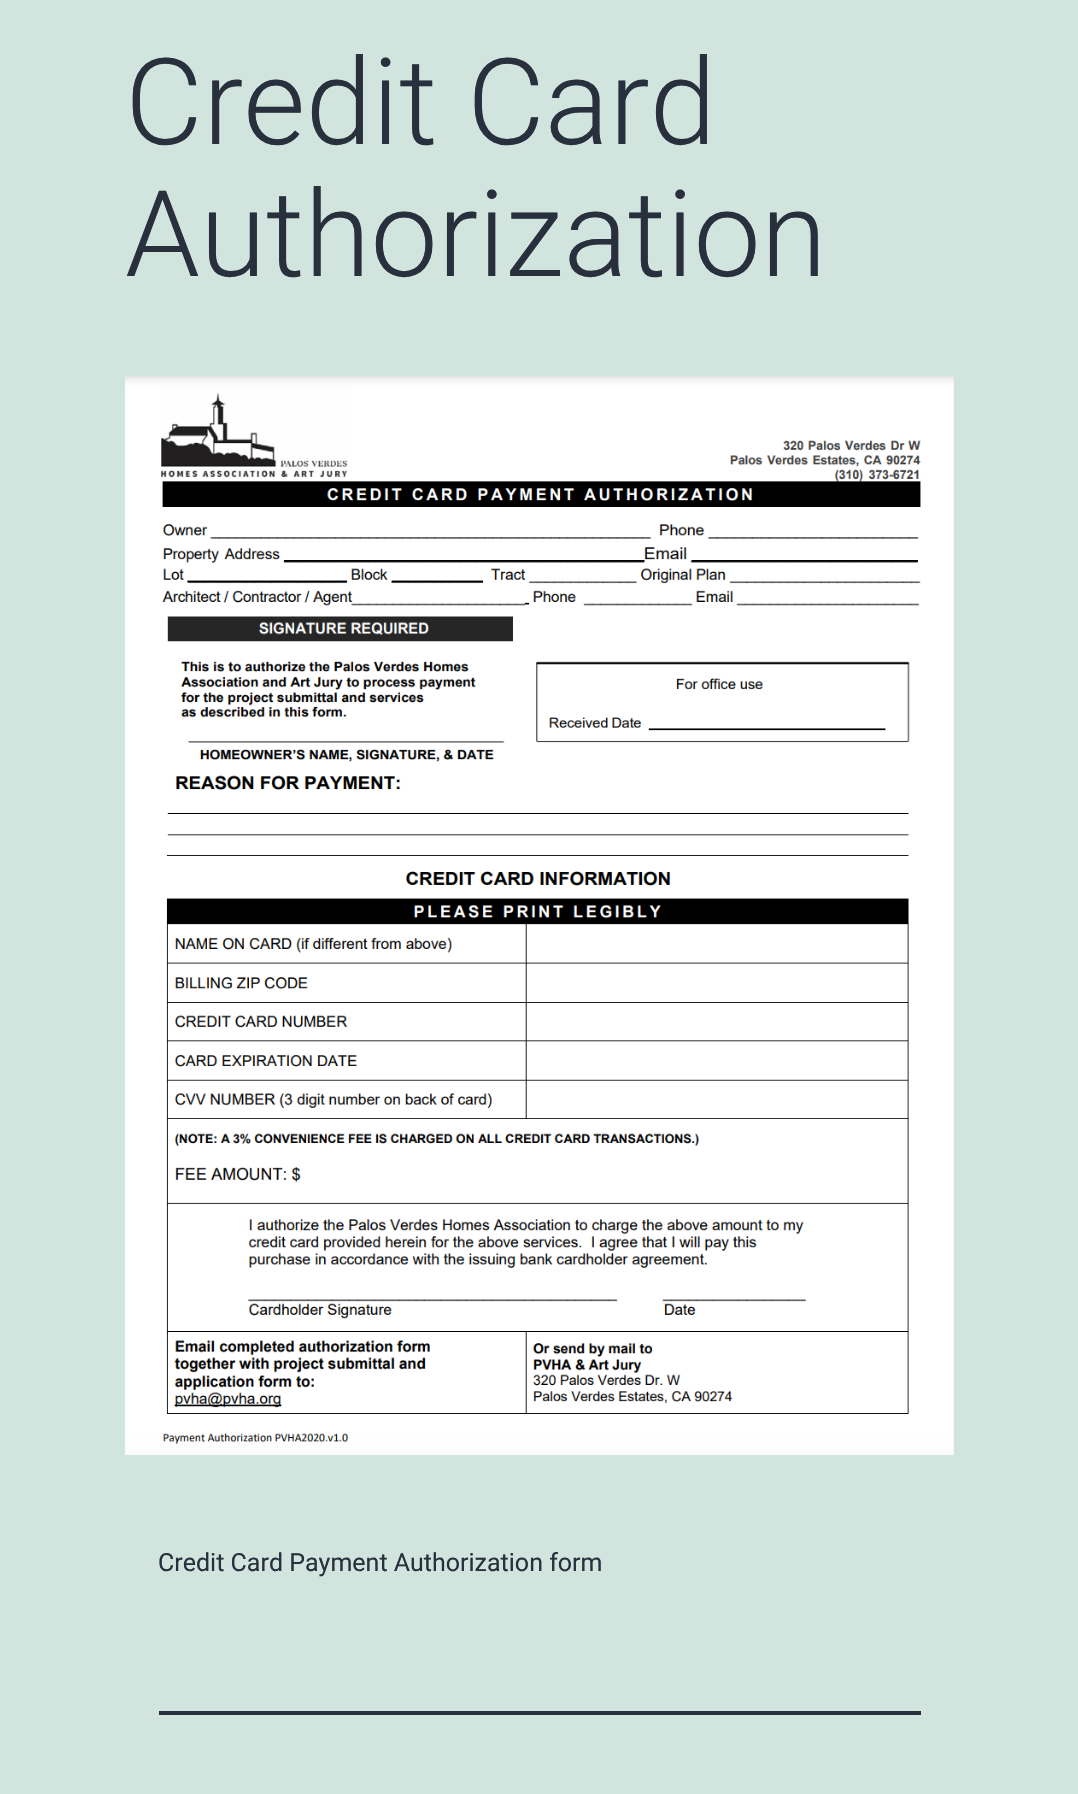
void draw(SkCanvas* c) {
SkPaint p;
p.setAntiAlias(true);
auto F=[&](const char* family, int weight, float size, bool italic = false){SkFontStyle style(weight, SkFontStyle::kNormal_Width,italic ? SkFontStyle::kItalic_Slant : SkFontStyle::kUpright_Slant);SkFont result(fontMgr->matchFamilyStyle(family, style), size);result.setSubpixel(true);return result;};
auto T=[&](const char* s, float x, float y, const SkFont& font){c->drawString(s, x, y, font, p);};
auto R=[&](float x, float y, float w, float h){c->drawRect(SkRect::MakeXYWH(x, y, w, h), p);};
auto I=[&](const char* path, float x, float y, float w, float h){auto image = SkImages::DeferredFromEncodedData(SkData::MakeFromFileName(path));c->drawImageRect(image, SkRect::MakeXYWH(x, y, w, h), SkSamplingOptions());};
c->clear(0xffd1e4dd);
auto f1 = F("Roboto",300,120);
p.setColor(0xff28303d);
T("Credit Card",125,144,f1);
T("Authorization",125,276,f1);
I("1.png",125,376,829,1079);
auto f2 = F("Roboto",400,25);
T("Credit Card Payment Authorization form",158,1571,f2);
R(159,1711,762,4);
}
